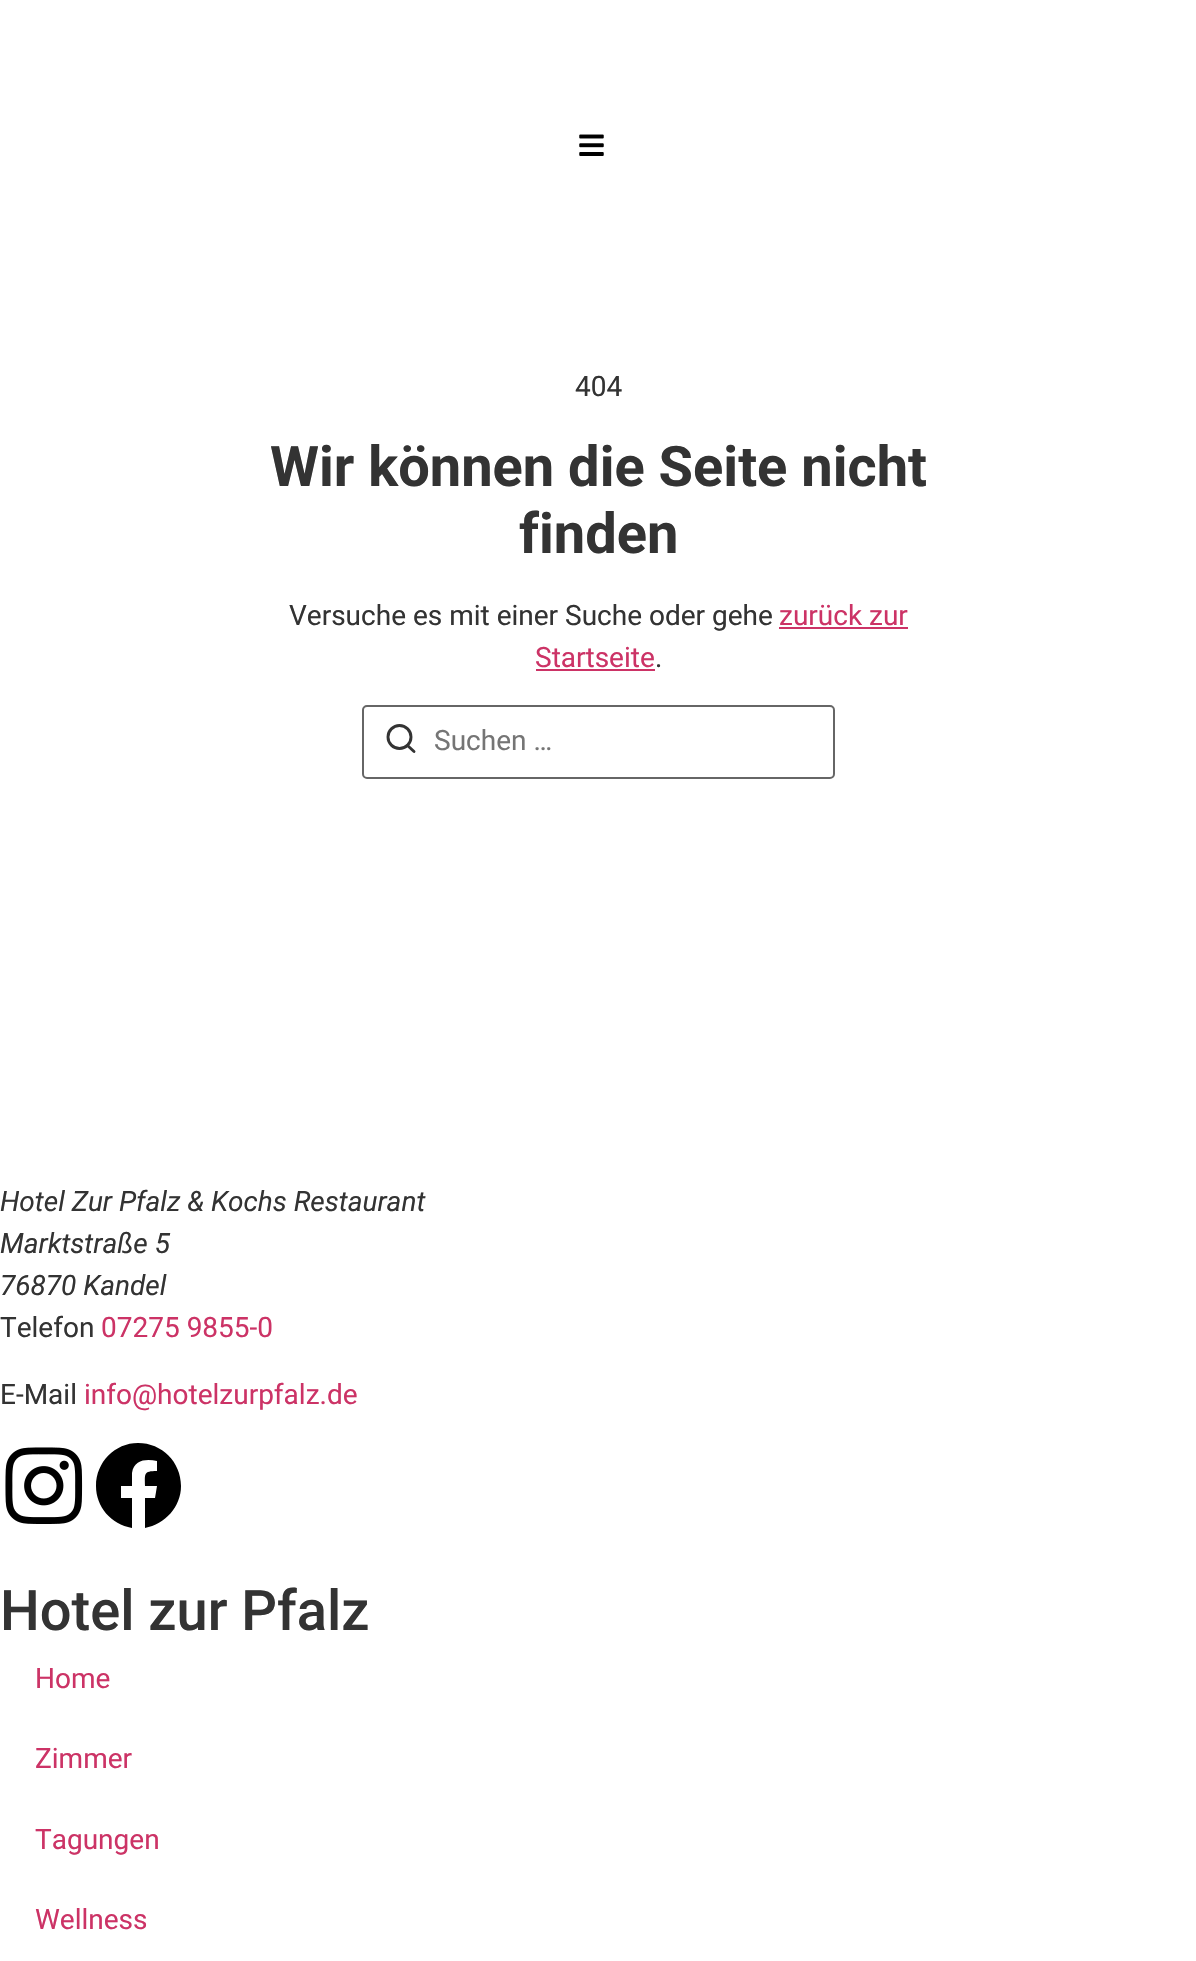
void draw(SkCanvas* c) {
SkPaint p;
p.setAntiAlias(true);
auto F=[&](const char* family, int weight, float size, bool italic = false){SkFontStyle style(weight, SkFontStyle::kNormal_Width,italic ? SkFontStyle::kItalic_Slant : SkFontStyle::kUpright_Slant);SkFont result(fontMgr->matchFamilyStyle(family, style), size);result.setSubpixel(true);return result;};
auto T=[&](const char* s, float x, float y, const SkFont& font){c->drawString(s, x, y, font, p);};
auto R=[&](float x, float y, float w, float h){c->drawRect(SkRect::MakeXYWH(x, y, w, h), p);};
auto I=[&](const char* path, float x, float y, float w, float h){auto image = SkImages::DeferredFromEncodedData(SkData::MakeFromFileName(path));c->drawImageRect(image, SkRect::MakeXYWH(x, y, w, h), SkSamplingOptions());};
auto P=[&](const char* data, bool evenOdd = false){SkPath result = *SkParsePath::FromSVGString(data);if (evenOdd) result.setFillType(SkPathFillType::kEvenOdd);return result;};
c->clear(0xffffffff);
I("1.png",579,134,25,22);
auto f1 = F("Roboto",400,28);
p.setColor(0xff333333);
T("404",575,396,f1);
auto f2 = F("Roboto",700,56);
T("Wir können die Seite nicht",270,486,f2);
T("finden",519,553,f2);
T("Versuche es mit einer Suche oder gehe",289,625,f1);
p.setColor(0xffcc3366);
T("zurück zur",779,625,f1);
R(779,627,129,2);
T("Startseite",535,667,f1);
R(536,669,119,2);
p.setColor(0xff333333);
T(".",655,667,f1);
p.setStroke(true);
p.setStrokeWidth(2);
p.setColor(0xff666666);
c->drawRoundRect(SkRect::MakeXYWH(363,706,471,72),4,4,p);
p.setStrokeWidth(2.9);
p.setColor(0xff333333);
c->drawCircle(399.5,737,11.5,p);
p.setStrokeCap(SkPaint::kRound_Cap);
p.setStrokeJoin(SkPaint::kRound_Join);
c->drawPath(P("M414 751.5l-6.5-6"),p);
p.setStroke(false);
p.setColor(0xff757575);
T("Suchen …",434,750,f1);
auto f3 = F("Roboto",400,28,true);
p.setColor(0xff333333);
T("Hotel Zur Pfalz & Kochs Restaurant",0,1211,f3);
T("Marktstraße 5",0,1253,f3);
T("76870 Kandel",0,1295,f3);
T("Telefon",0,1337,f1);
p.setColor(0xffcc3366);
T("07275 9855-0",101,1337,f1);
p.setColor(0xff333333);
T("E-Mail",0,1404,f1);
p.setColor(0xffcc3366);
T("info@hotelzurpfalz.de",84,1404,f1);
I("2.png",5,1447,78,77);
p.setColor(0xff000000);
c->drawPath(P("M181 1486c0-24-19-43-43-43c-23 0-42 19-42 43c0 21 15 38 36 42v-30h-11v-12h11v-13c2-14 15-14 25-12v10c-14 0-12 3-12 15h12l-2 12h-10v30c20-4 36-21 36-42z"),p);
auto f4 = F("Roboto",500,56);
p.setColor(0xff333333);
T("Hotel zur Pfalz",0,1630,f4);
p.setColor(0xffcc3366);
T("Home",35,1688,f1);
T("Zimmer",35,1768,f1);
T("Tagungen",35,1849,f1);
T("Wellness",35,1929,f1);
}
